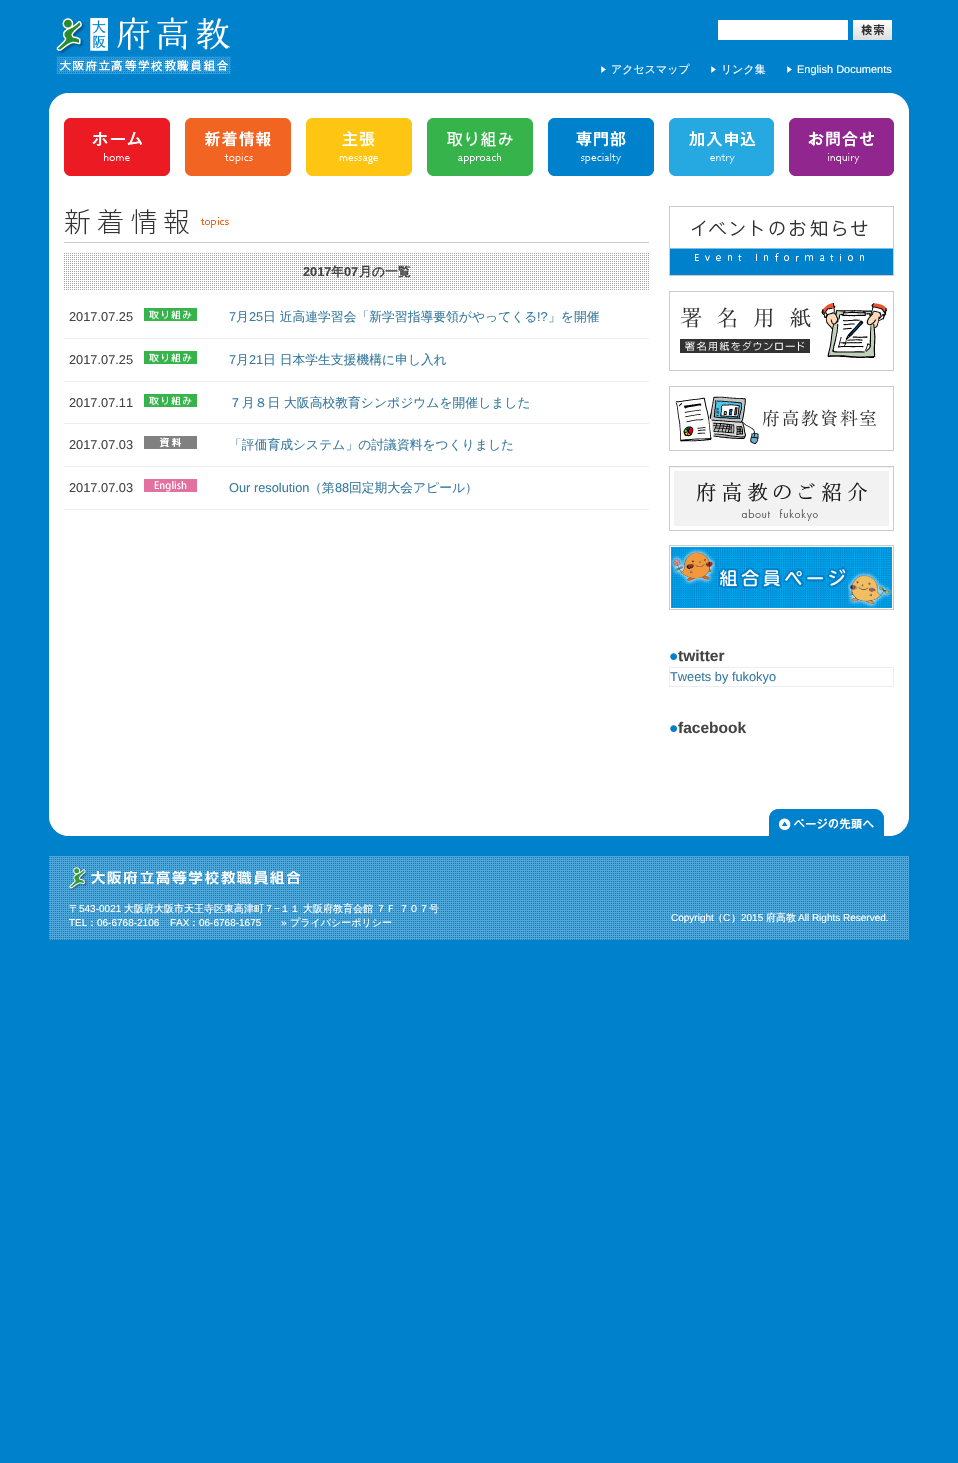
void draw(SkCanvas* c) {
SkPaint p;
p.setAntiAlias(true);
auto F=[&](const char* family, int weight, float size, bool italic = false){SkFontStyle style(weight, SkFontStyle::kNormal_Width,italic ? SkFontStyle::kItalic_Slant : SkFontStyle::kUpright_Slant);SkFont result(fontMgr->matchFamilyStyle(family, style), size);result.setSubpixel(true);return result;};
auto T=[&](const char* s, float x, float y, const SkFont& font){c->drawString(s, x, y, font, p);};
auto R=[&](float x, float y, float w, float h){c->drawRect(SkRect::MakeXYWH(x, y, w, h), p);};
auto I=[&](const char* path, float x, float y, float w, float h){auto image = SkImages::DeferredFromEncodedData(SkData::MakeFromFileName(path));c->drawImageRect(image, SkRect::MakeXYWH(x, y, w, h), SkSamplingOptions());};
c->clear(0xff0081cc);
I("1.png",56,17,175,57);
p.setColor(0xffffffff);
R(718,20,130,20);
I("2.png",853,20,39,20);
I("3.png",601,66,5,7);
auto f1 = F("WenQuanYi Zen Hei",500,11);
T("アクセスマップ",611,73,f1);
I("3.png",711,66,5,7);
T("リンク集",721,73,f1);
I("3.png",787,66,5,7);
auto f2 = F("Liberation Sans",400,11);
T("English Documents",797,73,f2);
R(49,110,860,709);
I("4.png",49,93,860,17);
I("5.png",49,819,860,17);
I("6.png",64,118,106,58);
I("7.png",185,118,106,58);
I("8.png",306,118,106,58);
I("9.png",427,118,106,58);
I("10.png",548,118,106,58);
I("11.png",669,118,105,58);
I("12.png",789,118,105,58);
I("13.png",64,209,585,34);
I("14.png",64,253,585,37);
auto f3 = F("Liberation Sans",700,12.8);
p.setColor(0xff444444);
T("2017",303,276,f3);
auto f4 = F("WenQuanYi Zen Hei",700,12.8);
T("年",331,276,f4);
T("07",344,276,f3);
T("月の一覧",359,276,f4);
p.setColor(0xffeeeeee);
R(64,338,585,1);
auto f5 = F("Liberation Sans",400,12.8);
p.setColor(0xff444444);
T("2017.07.25",69,321,f5);
I("15.png",144,308,53,13);
p.setColor(0xff377a9f);
T("7",229,321,f5);
auto f6 = F("WenQuanYi Zen Hei",500,12.8);
T("月",236,321,f6);
T("25",249,321,f5);
T("日 近高連学習会「新学習指導要領がやってくる",263,321,f6);
T("!?",537,321,f5);
T("」を開催",548,321,f6);
p.setColor(0xffeeeeee);
R(64,381,585,1);
p.setColor(0xff444444);
T("2017.07.25",69,364,f5);
I("16.png",144,351,53,13);
p.setColor(0xff377a9f);
T("7",229,364,f5);
T("月",236,364,f6);
T("21",249,364,f5);
T("日 日本学生支援機構に申し入れ",263,364,f6);
p.setColor(0xffeeeeee);
R(64,423,585,1);
p.setColor(0xff444444);
T("2017.07.11",69,407,f5);
I("16.png",144,394,53,13);
p.setColor(0xff377a9f);
T("７月８日 大阪高校教育シンポジウムを開催しました",229,407,f6);
p.setColor(0xffeeeeee);
R(64,466,585,1);
p.setColor(0xff444444);
T("2017.07.03",69,449,f5);
I("17.png",144,436,53,13);
p.setColor(0xff377a9f);
T("「評価育成システム」の討議資料をつくりました",229,449,f6);
p.setColor(0xffeeeeee);
R(64,509,585,1);
p.setColor(0xff444444);
T("2017.07.03",69,492,f5);
I("18.png",144,479,53,13);
p.setColor(0xff377a9f);
T("Our resolution",229,492,f5);
T("（第",309,492,f6);
T("88",335,492,f5);
T("回定期大会アピール）",349,492,f6);
I("19.png",669,206,225,70);
I("20.png",669,291,225,80);
I("21.png",669,386,225,65);
I("22.png",669,466,225,65);
I("23.png",669,545,225,65);
auto f7 = F("Liberation Sans",700,15.5);
p.setColor(0xff0081cc);
T("●",669,661,f7);
p.setColor(0xff444444);
T("twitter",678,661,f7);
p.setStroke(true);
p.setStrokeWidth(1);
p.setColor(0xffebedf0);
c->drawRect(SkRect::MakeXYWH(669.5,667.5,224,19),p);
p.setStroke(false);
p.setColor(0xff377a9f);
T("Tweets by fukokyo",670,681,f5);
p.setColor(0xff0081cc);
T("●",669,733,f7);
p.setColor(0xff444444);
T("facebook",678,733,f7);
I("24.png",769,809,115,27);
I("25.png",49,856,860,84);
I("26.png",69,866,232,25);
auto f8 = F("WenQuanYi Zen Hei",500,10);
p.setColor(0xffffffff);
T("〒",69,912,f8);
auto f9 = F("Liberation Sans",400,10);
T("543-0021",79,912,f9);
T("大阪府大阪市天王寺区東高津町７",124,912,f8);
T("−",274,912,f9);
T("１１",280,912,f8);
T("大阪府教育会館 ７Ｆ ７０７号",303,912,f8);
T("TEL",69,926,f9);
T("：",87,926,f8);
T("06-6768-2106",97,926,f9);
T("FAX",170,926,f9);
T("：",189,926,f8);
T("06-6768-1675",199,926,f9);
T("»",281,926,f9);
T("プライバシーポリシー",290,926,f8);
T("Copyright",671,921,f9);
T("（",713,921,f8);
T("C",723,921,f9);
T("）",731,921,f8);
T("2015",741,921,f9);
T("府高教",766,921,f8);
T("All Rights Reserved.",798,921,f9);
}
